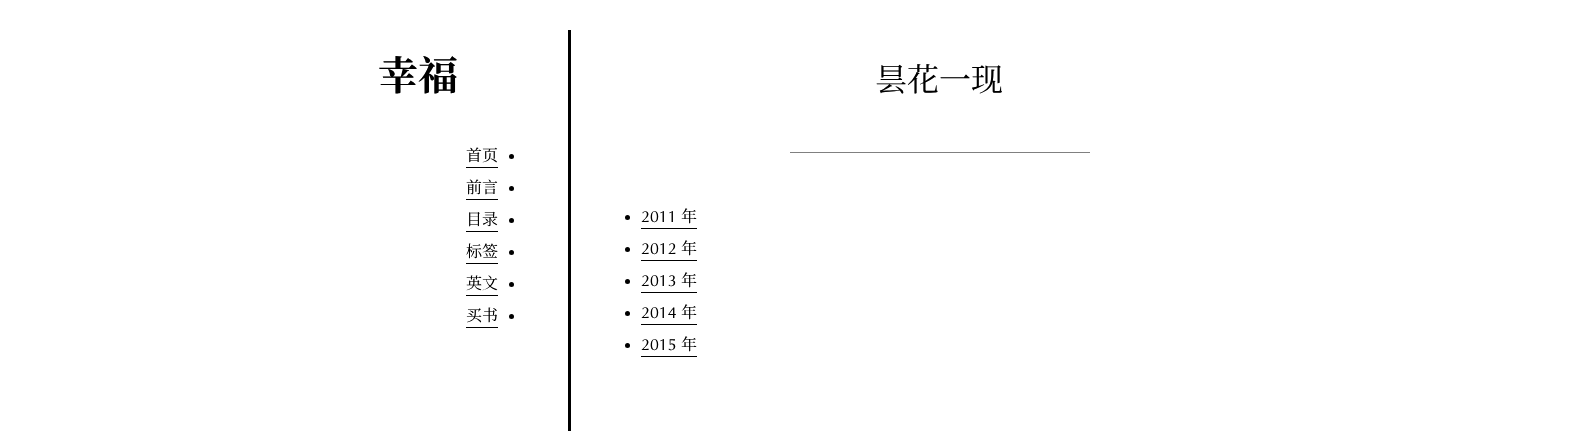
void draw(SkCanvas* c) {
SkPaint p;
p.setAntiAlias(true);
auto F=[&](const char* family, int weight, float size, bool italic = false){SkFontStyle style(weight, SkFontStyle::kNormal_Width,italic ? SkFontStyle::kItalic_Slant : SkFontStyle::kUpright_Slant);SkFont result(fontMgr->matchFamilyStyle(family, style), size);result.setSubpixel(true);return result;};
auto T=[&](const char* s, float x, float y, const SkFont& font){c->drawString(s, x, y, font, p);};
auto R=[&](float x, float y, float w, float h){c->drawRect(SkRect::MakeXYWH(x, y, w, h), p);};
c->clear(0xffffffff);
auto f1 = F("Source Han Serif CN",700,40);
p.setColor(0xff000000);
T("幸福",378,90,f1);
auto f2 = F("Source Han Serif CN",400,16);
T("首页",466,161,f2);
R(466,167,32,1);
c->drawCircle(511.5,156.5,2.5,p);
T("前言",466,193,f2);
R(466,199,32,1);
c->drawCircle(511.5,188.5,2.5,p);
T("目录",466,225,f2);
R(466,231,32,1);
c->drawCircle(511.5,220.5,2.5,p);
T("标签",466,257,f2);
R(466,263,32,1);
c->drawCircle(511.5,252.5,2.5,p);
T("英文",466,289,f2);
R(466,295,32,1);
c->drawCircle(511.5,284.5,2.5,p);
T("买书",466,321,f2);
R(466,327,32,1);
c->drawCircle(511.5,316.5,2.5,p);
R(568,30,3,401);
auto f3 = F("Source Han Serif CN",400,32);
T("昙花一现",875,91,f3);
p.setColor(0xff808080);
R(790,152,300,1);
p.setColor(0xff000000);
c->drawCircle(627.5,217.5,2.5,p);
auto f4 = F("Optima",400,16);
T("2011",641,222,f4);
R(641,228,56,1);
T("年",681,222,f2);
c->drawCircle(627.5,249.5,2.5,p);
T("2012",641,254,f4);
R(641,260,56,1);
T("年",681,254,f2);
c->drawCircle(627.5,281.5,2.5,p);
T("2013",641,286,f4);
R(641,292,56,1);
T("年",681,286,f2);
c->drawCircle(627.5,313.5,2.5,p);
T("2014",641,318,f4);
R(641,324,56,1);
T("年",681,318,f2);
c->drawCircle(627.5,345.5,2.5,p);
T("2015",641,350,f4);
R(641,356,56,1);
T("年",681,350,f2);
}
